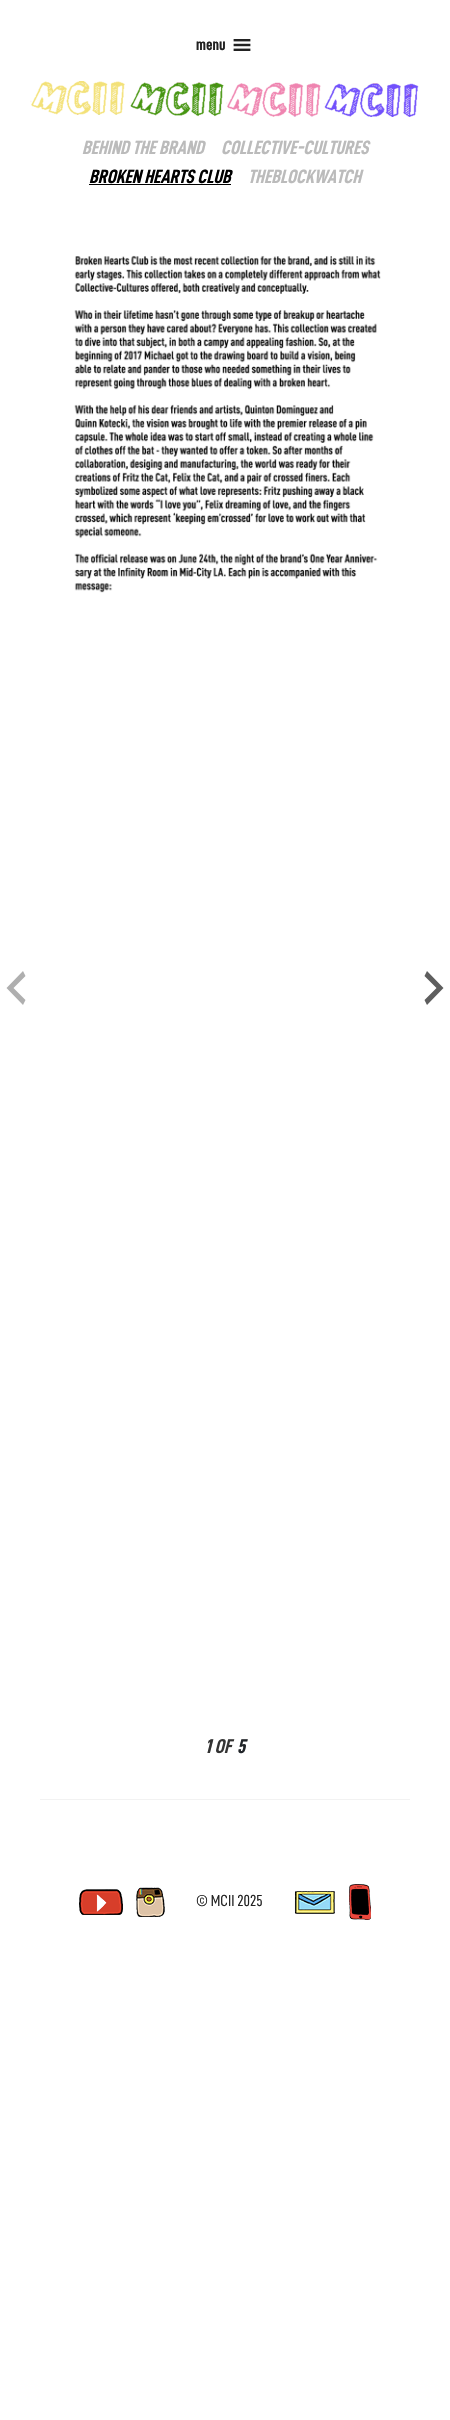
void draw(SkCanvas* c) {
SkPaint p;
p.setAntiAlias(true);
auto F=[&](const char* family, int weight, float size, bool italic = false){SkFontStyle style(weight, SkFontStyle::kNormal_Width,italic ? SkFontStyle::kItalic_Slant : SkFontStyle::kUpright_Slant);SkFont result(fontMgr->matchFamilyStyle(family, style), size);result.setSubpixel(true);return result;};
auto T=[&](const char* s, float x, float y, const SkFont& font){c->drawString(s, x, y, font, p);};
auto R=[&](float x, float y, float w, float h){c->drawRect(SkRect::MakeXYWH(x, y, w, h), p);};
auto I=[&](const char* path, float x, float y, float w, float h){auto image = SkImages::DeferredFromEncodedData(SkData::MakeFromFileName(path));c->drawImageRect(image, SkRect::MakeXYWH(x, y, w, h), SkSamplingOptions());};
auto P=[&](const char* data, bool evenOdd = false){SkPath result = *SkParsePath::FromSVGString(data);if (evenOdd) result.setFillType(SkPathFillType::kEvenOdd);return result;};
c->clear(0xffffffff);
auto f1 = F("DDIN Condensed",700,16);
p.setColor(0xff222222);
T("menu",196,50,f1);
I("1.png",233,39,18,12);
I("2.png",30,81,389,36);
auto f2 = F("DDIN Condensed",700,19.25,true);
p.setColor(0xffbbbbbb);
T("BEHIND THE BRAND",82,154,f2);
T("COLLECTIVE-CULTURES",221,154,f2);
p.setColor(0xff000000);
T("BROKEN HEARTS CLUB",89,183,f2);
R(89,184,142,1);
p.setColor(0xffbbbbbb);
T("THEBLOCKWATCH",248,183,f2);
I("3.png",74,255,307,338);
p.setColor(0xffafafaf);
c->drawPath(P("M25.5 976l-12 12l12 12l-2.5 5l-16.5-17l16.5-17z"),p);
p.setColor(0xff5e5e5e);
c->drawPath(P("M424.5 1000l12-12l-12-12l2.5-5l16.5 17l-16.5 17z"),p);
I("4.png",216,1739,19,15);
auto f3 = F("DDIN Condensed",700,20,true);
p.setColor(0xff333333);
T("1",205,1753,f3);
p.setColor(0xff212529);
T("5",237,1753,f3);
p.setColor(0xfff2f2f2);
R(40,1799,370,1);
I("5.png",79,1889,44,26);
I("6.png",136,1887,29,30);
auto f4 = F("DDIN Condensed",400,16);
p.setColor(0xff222222);
T("© MCII 2025",196,1906,f4);
I("7.png",294,1891,41,23);
I("8.png",349,1884,22,36);
}
